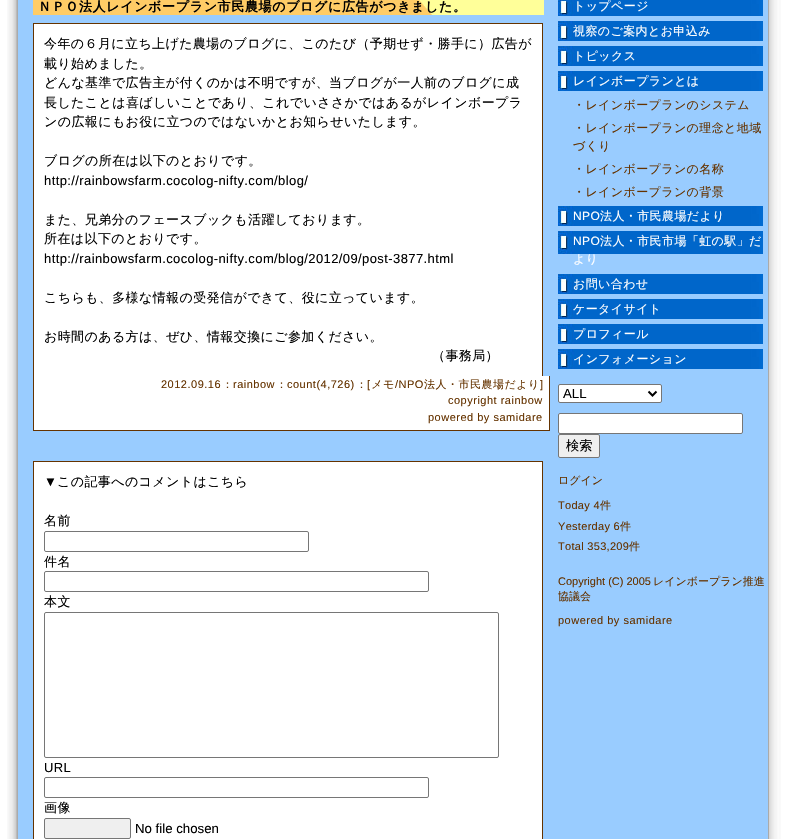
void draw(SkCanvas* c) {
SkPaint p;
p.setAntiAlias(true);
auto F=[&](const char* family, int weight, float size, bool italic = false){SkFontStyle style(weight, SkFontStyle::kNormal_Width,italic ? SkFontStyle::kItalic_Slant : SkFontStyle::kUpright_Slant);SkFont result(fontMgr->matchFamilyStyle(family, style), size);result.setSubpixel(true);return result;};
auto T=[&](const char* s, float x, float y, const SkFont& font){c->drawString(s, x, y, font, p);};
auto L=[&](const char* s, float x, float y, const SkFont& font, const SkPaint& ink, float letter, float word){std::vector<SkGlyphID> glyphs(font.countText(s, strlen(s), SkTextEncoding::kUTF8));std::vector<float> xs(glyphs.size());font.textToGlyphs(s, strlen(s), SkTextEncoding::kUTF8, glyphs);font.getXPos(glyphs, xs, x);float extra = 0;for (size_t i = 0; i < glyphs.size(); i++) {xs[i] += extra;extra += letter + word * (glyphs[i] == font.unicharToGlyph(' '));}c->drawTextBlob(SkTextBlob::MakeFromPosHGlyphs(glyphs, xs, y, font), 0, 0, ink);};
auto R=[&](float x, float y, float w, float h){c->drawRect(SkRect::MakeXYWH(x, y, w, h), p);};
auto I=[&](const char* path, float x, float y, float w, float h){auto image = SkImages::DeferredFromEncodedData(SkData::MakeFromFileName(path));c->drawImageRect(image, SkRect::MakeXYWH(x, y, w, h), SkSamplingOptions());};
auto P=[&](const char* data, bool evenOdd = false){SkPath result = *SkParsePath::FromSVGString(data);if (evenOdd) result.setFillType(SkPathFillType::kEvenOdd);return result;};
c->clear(0xffffffff);
I("1.png",7,0,774,839);
p.setColor(0xffaaaaaa);
R(768,0,1,839);
R(17,0,1,839);
p.setColor(0xff99ccff);
R(18,0,750,839);
I("2.png",33,0,511,15);
auto f1 = F("WenQuanYi Zen Hei",700,13);
p.setColor(0xff000000);
L("ＮＰＯ法人レインボープラン市民農場のブログに広告がつきました。",38,11,f1,p,.65,0);
p.setColor(0xffffffff);
R(34,24,508,352);
p.setColor(0xff653300);
R(33,23,510,1);
R(542,23,1,353);
R(33,23,1,353);
auto f2 = F("WenQuanYi Zen Hei",500,13);
p.setColor(0xff000000);
L("今年の６月に立ち上げた農場のブログに、このたび（予期せず・勝手に）広告が",44,48,f2,p,.4,0);
L("載り始めました。",44,68,f2,p,.4,0);
L("どんな基準で広告主が付くのかは不明ですが、当ブログが一人前のブログに成",44,87,f2,p,.4,0);
L("長したことは喜ばしいことであり、これでいささかではあるがレインボープラ",44,107,f2,p,.4,0);
L("ンの広報にもお役に立つのではないかとお知らせいたします。",44,126,f2,p,.4,0);
L("ブログの所在は以下のとおりです。",44,165,f2,p,.4,0);
auto f3 = F("Liberation Sans",400,13);
L("http://rainbowsfarm.cocolog-nifty.com/blog/",44,185,f3,p,.4,0);
L("また、兄弟分のフェースブックも活躍しております。",44,224,f2,p,.4,0);
L("所在は以下のとおりです。",44,243,f2,p,.4,0);
L("http://rainbowsfarm.cocolog-nifty.com/blog/2012/09/post-3877.html",44,263,f3,p,.4,0);
L("こちらも、多様な情報の受発信ができて、役に立っています。",44,302,f2,p,.4,0);
L("お時間のある方は、ぜひ、情報交換にご参加ください。",44,341,f2,p,.4,0);
L("（事務局）",432,360,f2,p,.4,0);
p.setColor(0xffffffff);
R(34,376,515,54);
p.setColor(0xff653300);
R(549,376,1,55);
R(33,430,517,1);
R(33,376,1,55);
auto f4 = F("Liberation Sans",400,11);
L("2012.09.16",161,388,f4,p,.5,0);
L("rainbow",233,388,f4,p,.5,0);
L("count(4,726)",287,388,f4,p,.5,0);
auto f5 = F("WenQuanYi Zen Hei",500,11);
L("： メモ",356,388,f5,p,.5,0);
L("法人・市民農場だより",424,388,f5,p,.5,0);
L("：",222,388,f5,p,.5,0);
L("：",276,388,f5,p,.5,0);
L("[",367,388,f4,p,.5,0);
L("/NPO",395,388,f4,p,.5,0);
L("]",540,388,f4,p,.5,0);
L("copyright rainbow",448,404,f4,p,.5,0);
L("powered by samidare",428,421,f4,p,.5,0);
p.setColor(0xffffffff);
R(34,462,508,377);
p.setColor(0xff653300);
R(33,461,510,1);
R(542,461,1,378);
R(33,461,1,378);
p.setColor(0xff000000);
L("▼",44,486,f3,p,.4,0);
L("この記事へのコメントはこちら",57,486,f2,p,.4,0);
L("名前",44,525,f2,p,.4,0);
p.setStroke(true);
p.setStrokeWidth(1);
p.setColor(0xff767676);
c->drawRoundRect(SkRect::MakeXYWH(44.5,531.5,264,20),1.5,1.5,p);
p.setStroke(false);
p.setColor(0xff000000);
L("件名",44,566,f2,p,.4,0);
p.setStroke(true);
p.setColor(0xff767676);
c->drawRoundRect(SkRect::MakeXYWH(44.5,571.5,384,20),1.5,1.5,p);
p.setStroke(false);
p.setColor(0xff000000);
L("本文",44,606,f2,p,.4,0);
p.setStroke(true);
p.setColor(0xff767676);
c->drawRoundRect(SkRect::MakeXYWH(44.5,612.5,454,145),1.5,1.5,p);
p.setStroke(false);
p.setColor(0xff000000);
L("URL",44,772,f3,p,.4,0);
p.setStroke(true);
p.setColor(0xff767676);
c->drawRoundRect(SkRect::MakeXYWH(44.5,777.5,384,20),1.5,1.5,p);
p.setStroke(false);
p.setColor(0xff000000);
L("画像",44,812,f2,p,.4,0);
p.setColor(0xffefefef);
c->drawRoundRect(SkRect::MakeXYWH(44.5,818.5,86,20),1.5,1.5,p);
p.setStroke(true);
p.setColor(0xff767676);
c->drawRoundRect(SkRect::MakeXYWH(44.5,818.5,86,20),1.5,1.5,p);
auto f6 = F("Liberation Sans",400,13.25);
p.setStroke(false);
p.setColor(0xff000000);
T("No file chosen",135,833,f6);
I("3.png",558,0,205,16);
auto f7 = F("WenQuanYi Zen Hei",500,12);
p.setColor(0xffffffff);
L("トップページ",573,10,f7,p,.4,0);
I("4.png",558,21,205,20);
L("視察のご案内とお申込み",573,35,f7,p,.4,0);
I("4.png",558,46,205,20);
L("トピックス",573,60,f7,p,.4,0);
I("4.png",558,71,205,20);
L("レインボープランとは",573,85,f7,p,.4,0);
p.setColor(0xff653300);
L("・レインボープランのシステム",573,109,f7,p,.4,0);
L("・レインボープランの理念と地域",573,132,f7,p,.4,0);
L("づくり",573,150,f7,p,.4,0);
L("・レインボープランの名称",573,173,f7,p,.4,0);
L("・レインボープランの背景",573,196,f7,p,.4,0);
I("4.png",558,206,205,20);
auto f8 = F("Liberation Sans",400,12);
p.setColor(0xffffffff);
L("NPO",573,220,f8,p,.4,0);
L("法人・市民農場だより",600,220,f7,p,.4,0);
I("5.png",558,231,205,23);
L("NPO",573,245,f8,p,.4,0);
L("法人・市民市場「虹の駅」だ",600,245,f7,p,.4,0);
L("より",573,263,f7,p,.4,0);
I("4.png",558,274,205,20);
L("お問い合わせ",573,288,f7,p,.4,0);
I("4.png",558,299,205,20);
L("ケータイサイト",573,313,f7,p,.4,0);
I("4.png",558,324,205,20);
L("プロフィール",573,338,f7,p,.4,0);
I("4.png",558,349,205,20);
L("インフォメーション",573,363,f7,p,.4,0);
c->drawRoundRect(SkRect::MakeXYWH(558.5,384.5,103,18),1.5,1.5,p);
p.setStroke(true);
p.setColor(0xff767676);
c->drawRoundRect(SkRect::MakeXYWH(558.5,384.5,103,18),1.5,1.5,p);
p.setStrokeWidth(2);
p.setColor(0xff000000);
c->drawPath(P("M648.5 391.5l4 4l4-4"),p);
p.setStroke(false);
T("ALL",563,398,f6);
p.setColor(0xffffffff);
c->drawRoundRect(SkRect::MakeXYWH(558.5,413.5,184,20),1.5,1.5,p);
p.setStroke(true);
p.setStrokeWidth(1);
p.setColor(0xff767676);
c->drawRoundRect(SkRect::MakeXYWH(558.5,413.5,184,20),1.5,1.5,p);
p.setStroke(false);
p.setColor(0xffefefef);
c->drawRoundRect(SkRect::MakeXYWH(558.5,434.5,41,23),1.5,1.5,p);
p.setStroke(true);
p.setColor(0xff767676);
c->drawRoundRect(SkRect::MakeXYWH(558.5,434.5,41,23),1.5,1.5,p);
auto f9 = F("WenQuanYi Zen Hei",500,13.25);
p.setStroke(false);
p.setColor(0xff000000);
T("検索",566,450,f9);
p.setColor(0xff653300);
T("ログイン",558,484,f5);
L("Today 4",558,509,f4,p,.3,0);
L("件",600,509,f5,p,.3,0);
L("Yesterday 6",558,530,f4,p,.3,0);
L("件",620,530,f5,p,.3,0);
L("Total 353,209",558,550,f4,p,.3,0);
L("件",629,550,f5,p,.3,0);
T("Copyright (C) 2005",558,585,f4);
T("レインボープラン推進",653,585,f5);
T("協議会",558,600,f5);
L("powered by samidare",558,624,f4,p,.5,0);
}
